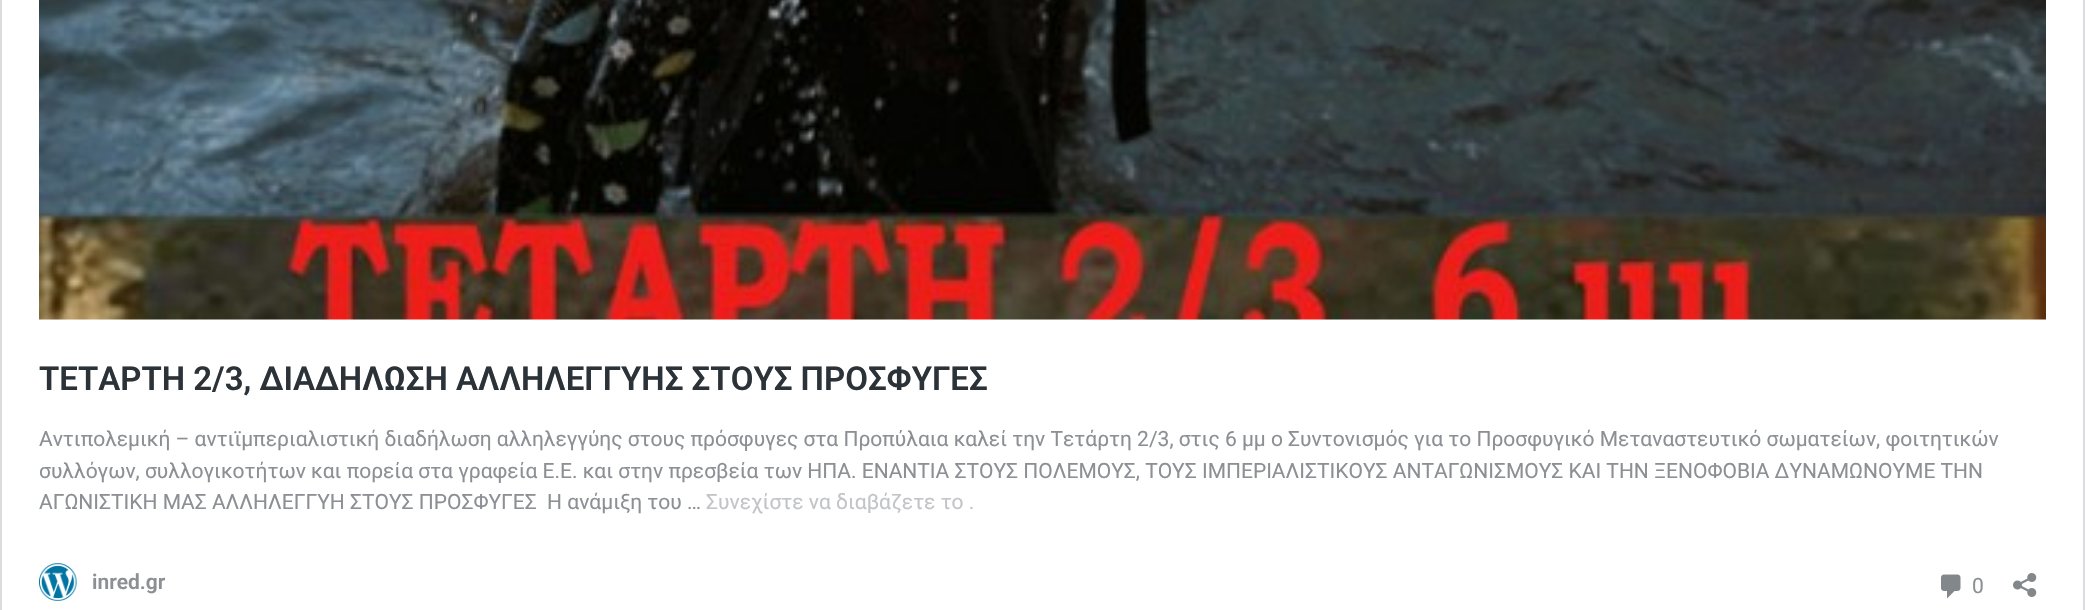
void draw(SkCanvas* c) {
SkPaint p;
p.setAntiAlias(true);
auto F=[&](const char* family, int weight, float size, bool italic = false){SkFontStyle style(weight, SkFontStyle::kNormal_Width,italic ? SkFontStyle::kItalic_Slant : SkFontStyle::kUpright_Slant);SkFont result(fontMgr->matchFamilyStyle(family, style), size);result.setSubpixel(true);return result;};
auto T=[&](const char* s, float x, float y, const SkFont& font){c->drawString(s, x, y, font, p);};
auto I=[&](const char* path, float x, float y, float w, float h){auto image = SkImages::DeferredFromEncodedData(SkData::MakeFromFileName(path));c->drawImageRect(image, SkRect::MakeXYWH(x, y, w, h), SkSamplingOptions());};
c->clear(0xffffffff);
p.setStroke(true);
p.setStrokeWidth(2);
p.setColor(0xffdcdcde);
c->drawRect(SkRect::MakeXYWH(1,-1,2083,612),p);
I("1.png",39,0,2007,320);
auto f1 = F("Roboto",600,33);
p.setStroke(false);
p.setColor(0xff2c3338);
T("ΤΕΤΑΡΤΗ 2/3, ΔΙΑΔΗΛΩΣΗ ΑΛΛΗΛΕΓΓΥΗΣ ΣΤΟΥΣ ΠΡΟΣΦΥΓΕΣ",39,390,f1);
auto f2 = F("Roboto",400,21);
p.setColor(0xff8c8f94);
T("Αντιπολεμική – αντιϊμπεριαλιστική διαδήλωση αλληλεγγύης στους πρόσφυγες στα Προπύλαια καλεί την Τετάρτη 2/3, στις 6 μμ ο Συντονισμός για το Προσφυγικό Μεταναστευτικό σωματείων, φοιτητικών",39,446,f2);
T("συλλόγων, συλλογικοτήτων και πορεία στα γραφεία Ε.Ε. και στην πρεσβεία των ΗΠΑ. ΕΝΑΝΤΙΑ ΣΤΟΥΣ ΠΟΛΕΜΟΥΣ, ΤΟΥΣ ΙΜΠΕΡΙΑΛΙΣΤΙΚΟΥΣ ΑΝΤΑΓΩΝΙΣΜΟΥΣ ΚΑΙ ΤΗΝ ΞΕΝΟΦΟΒΙΑ ΔΥΝΑΜΩΝΟΥΜΕ ΤΗΝ",39,478,f2);
T("ΑΓΩΝΙΣΤΙΚΗ ΜΑΣ ΑΛΛΗΛΕΓΓΥΗ ΣΤΟΥΣ ΠΡΟΣΦΥΓΕΣ  Η ανάμιξη του …",39,509,f2);
p.setColor(0xffc3c4c7);
T("Συνεχίστε να διαβάζετε το .",706,509,f2);
I("2.png",39,563,38,38);
auto f3 = F("Roboto",600,21);
p.setColor(0xff8c8f94);
T("inred.gr",92,589,f3);
I("3.png",1941,574,20,25);
T("0",1972,593,f2);
I("4.png",2013,573,24,24);
}
